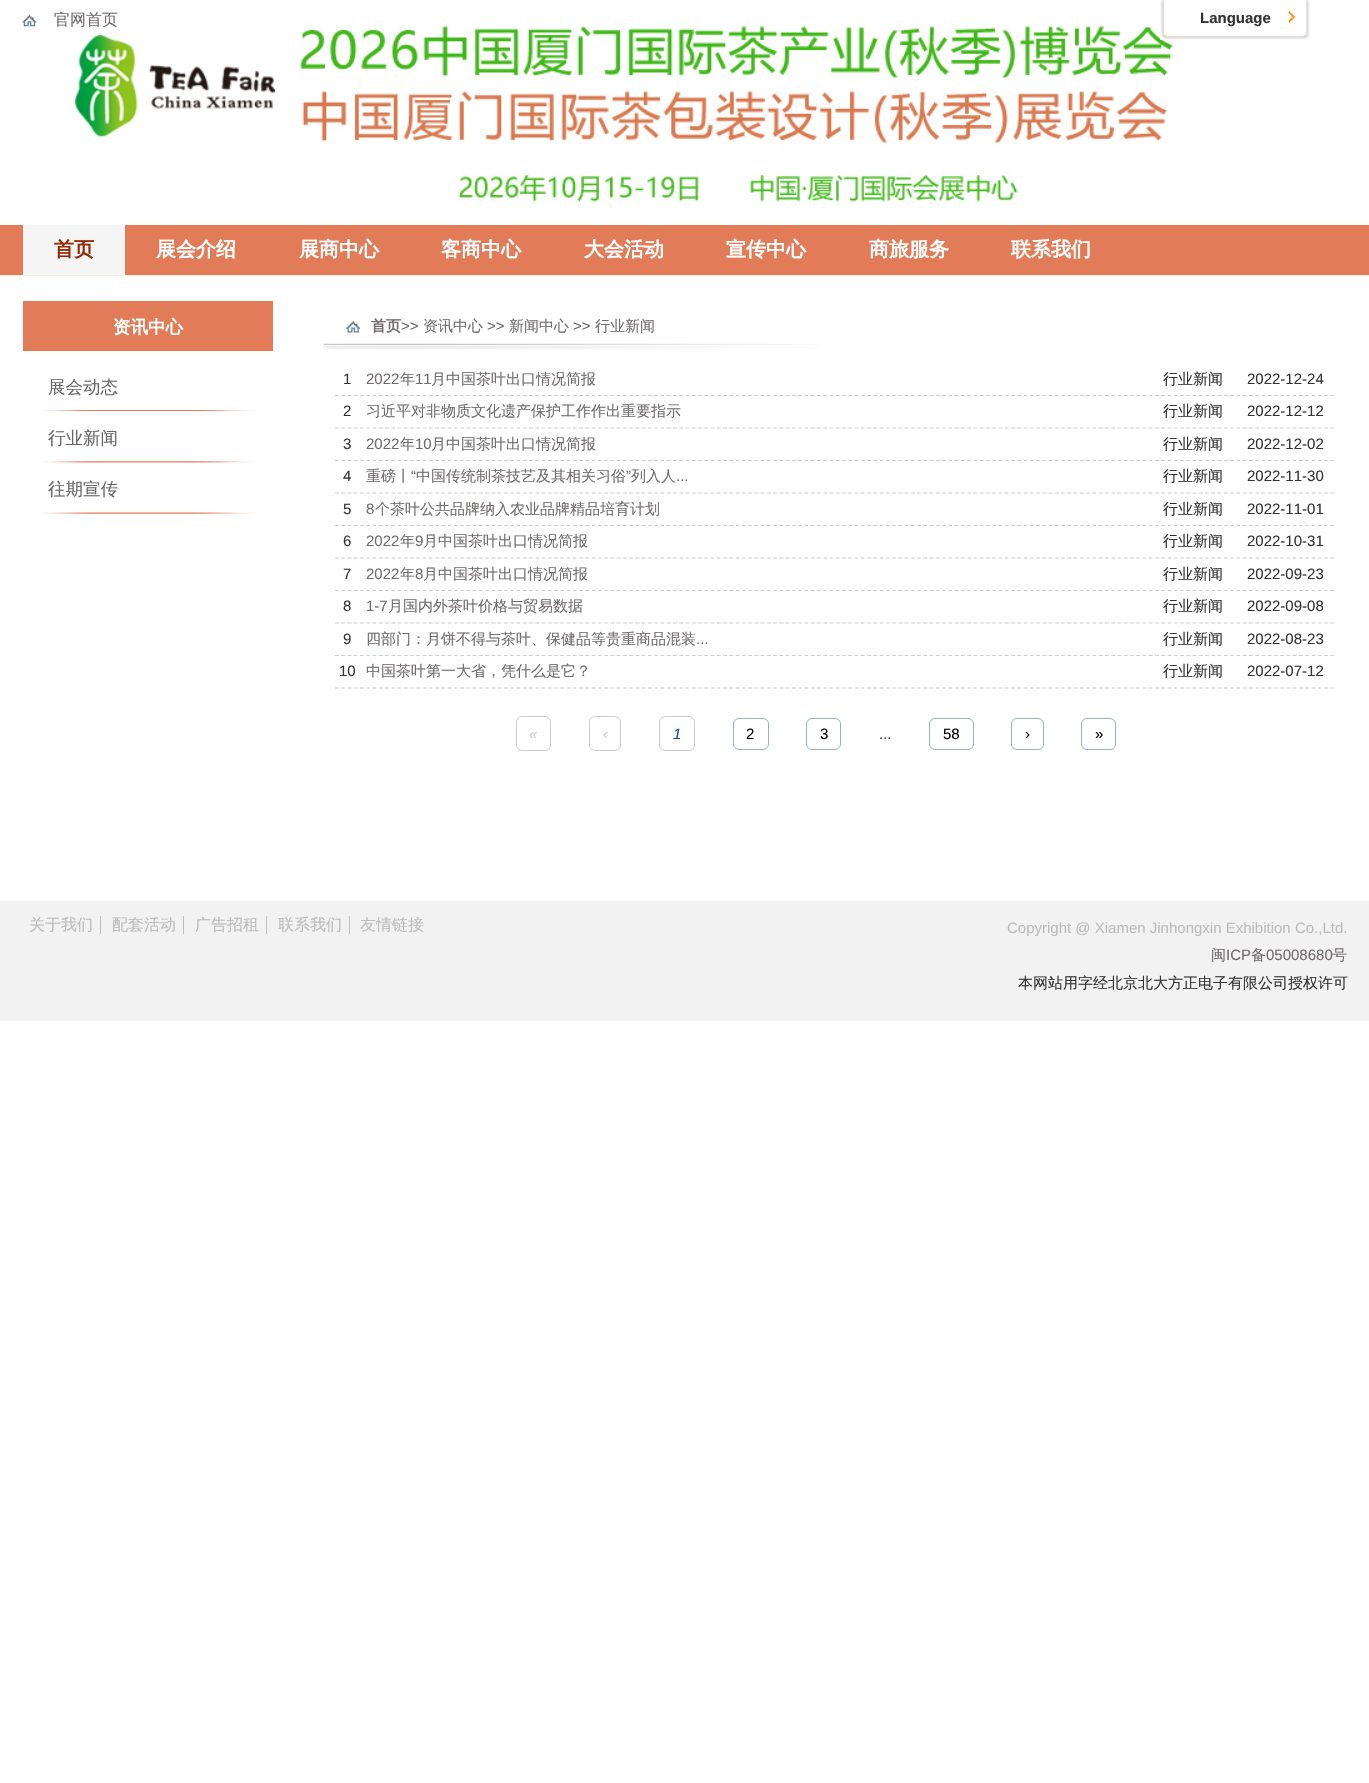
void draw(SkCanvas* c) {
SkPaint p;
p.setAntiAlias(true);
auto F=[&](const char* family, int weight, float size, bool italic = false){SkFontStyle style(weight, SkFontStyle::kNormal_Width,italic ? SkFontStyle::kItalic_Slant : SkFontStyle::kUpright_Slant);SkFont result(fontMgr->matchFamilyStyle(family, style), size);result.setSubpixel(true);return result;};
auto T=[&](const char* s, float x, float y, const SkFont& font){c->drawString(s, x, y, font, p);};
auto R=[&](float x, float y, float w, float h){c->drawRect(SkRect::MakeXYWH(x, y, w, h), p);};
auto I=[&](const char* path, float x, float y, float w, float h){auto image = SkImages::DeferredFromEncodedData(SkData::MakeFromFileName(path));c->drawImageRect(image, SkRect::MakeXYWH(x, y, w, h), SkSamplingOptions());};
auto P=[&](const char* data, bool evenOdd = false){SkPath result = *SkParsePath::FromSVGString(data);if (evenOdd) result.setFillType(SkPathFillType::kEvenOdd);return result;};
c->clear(0xffffffff);
p.setColor(0xfff7efdd);
R(0,275,1369,1);
I("1.png",22,14,15,13);
I("4.png",74,26,1099,179);
auto f1 = F("WenQuanYi Zen Hei",500,16);
p.setColor(0xff716c6c);
T("官网首页",54,25,f1);
I("2.png",1160,0,150,40);
I("3.png",1288,11,8,12);
auto f2 = F("Liberation Sans",700,15);
p.setColor(0xff333333);
T("Language",1200,23,f2);
p.setColor(0xffe27b58);
R(0,225,1369,50);
p.setColor(0xfff5f5f5);
R(23,225,102,50);
auto f3 = F("WenQuanYi Zen Hei",700,20);
p.setColor(0xff932905);
T("首页",54,256,f3);
p.setColor(0xffffffff);
T("展会介绍",156,256,f3);
T("展商中心",299,256,f3);
T("客商中心",441,256,f3);
T("大会活动",584,256,f3);
T("宣传中心",726,256,f3);
T("商旅服务",869,256,f3);
T("联系我们",1011,256,f3);
p.setColor(0xffe27b58);
R(23,301,250,50);
auto f4 = F("WenQuanYi Zen Hei",700,17.5);
p.setColor(0xffffffff);
T("资讯中心",113,333,f4);
I("5.png",35,410,225,1);
auto f5 = F("WenQuanYi Zen Hei",500,17.5);
p.setColor(0xff666666);
T("展会动态",48,393,f5);
I("6.png",38,461,219,2);
T("行业新闻",48,444,f5);
I("7.png",38,512,219,2);
T("往期宣传",48,495,f5);
I("8.png",323,343,497,7);
I("9.png",346,321,14,12);
auto f6 = F("WenQuanYi Zen Hei",700,15);
p.setColor(0xff716c6c);
T("首页",371,331,f6);
auto f7 = F("Liberation Sans",400,15);
p.setColor(0xff666666);
T(">>",401,331,f7);
auto f8 = F("WenQuanYi Zen Hei",500,15);
p.setColor(0xff716c6c);
T("资讯中心",423,331,f8);
p.setColor(0xff666666);
T(">>",487,331,f7);
p.setColor(0xff716c6c);
T("新闻中心",509,331,f8);
p.setColor(0xff666666);
T(">>",573,331,f7);
p.setColor(0xff716c6c);
T("行业新闻",595,331,f8);
p.setStroke(true);
p.setStrokeWidth(1.2);
p.setColor(0xffcccccc);
p.setPathEffect(SkDashPathEffect::Make({{3.75f,2.51f}}, 0));
c->drawPath(P("M335 395.5h1000"),p);
p.setPathEffect(nullptr);
p.setStroke(false);
p.setColor(0xff333333);
T("1",343,384,f7);
p.setColor(0xff716c6c);
T("2022",366,384,f7);
T("年",400,384,f8);
T("11",415,384,f7);
T("月中国茶叶出口情况简报",431,384,f8);
p.setColor(0xff333333);
T("行业新闻",1163,384,f8);
T("2022-12-24",1247,384,f7);
p.setStroke(true);
p.setColor(0xffcccccc);
p.setPathEffect(SkDashPathEffect::Make({{3.75f,2.51f}}, 0));
c->drawPath(P("M335 428h1000"),p);
p.setPathEffect(nullptr);
p.setStroke(false);
p.setColor(0xff333333);
T("2",343,416,f7);
p.setColor(0xff716c6c);
T("习近平对非物质文化遗产保护工作作出重要指示",366,416,f8);
p.setColor(0xff333333);
T("行业新闻",1163,416,f8);
T("2022-12-12",1247,416,f7);
p.setStroke(true);
p.setColor(0xffcccccc);
p.setPathEffect(SkDashPathEffect::Make({{3.75f,2.51f}}, 0));
c->drawPath(P("M335 460.5h1000"),p);
p.setPathEffect(nullptr);
p.setStroke(false);
p.setColor(0xff333333);
T("3",343,449,f7);
p.setColor(0xff716c6c);
T("2022",366,449,f7);
T("年",400,449,f8);
T("10",415,449,f7);
T("月中国茶叶出口情况简报",431,449,f8);
p.setColor(0xff333333);
T("行业新闻",1163,449,f8);
T("2022-12-02",1247,449,f7);
p.setStroke(true);
p.setColor(0xffcccccc);
p.setPathEffect(SkDashPathEffect::Make({{3.75f,2.51f}}, 0));
c->drawPath(P("M335 493h1000"),p);
p.setPathEffect(nullptr);
p.setStroke(false);
p.setColor(0xff333333);
T("4",343,481,f7);
p.setColor(0xff716c6c);
T("重磅丨",366,481,f8);
T("“",411,481,f7);
T("中国传统制茶技艺及其相关习俗",416,481,f8);
T("”",626,481,f7);
T("列入人",631,481,f8);
T("...",676,481,f7);
p.setColor(0xff333333);
T("行业新闻",1163,481,f8);
T("2022-11-30",1247,481,f7);
p.setStroke(true);
p.setColor(0xffcccccc);
p.setPathEffect(SkDashPathEffect::Make({{3.75f,2.51f}}, 0));
c->drawPath(P("M335 525.5h1000"),p);
p.setPathEffect(nullptr);
p.setStroke(false);
p.setColor(0xff333333);
T("5",343,514,f7);
p.setColor(0xff716c6c);
T("8",366,514,f7);
T("个茶叶公共品牌纳入农业品牌精品培育计划",375,514,f8);
p.setColor(0xff333333);
T("行业新闻",1163,514,f8);
T("2022-11-01",1247,514,f7);
p.setStroke(true);
p.setColor(0xffcccccc);
p.setPathEffect(SkDashPathEffect::Make({{3.75f,2.51f}}, 0));
c->drawPath(P("M335 558h1000"),p);
p.setPathEffect(nullptr);
p.setStroke(false);
p.setColor(0xff333333);
T("6",343,546,f7);
p.setColor(0xff716c6c);
T("2022",366,546,f7);
T("年",400,546,f8);
T("9",415,546,f7);
T("月中国茶叶出口情况简报",423,546,f8);
p.setColor(0xff333333);
T("行业新闻",1163,546,f8);
T("2022-10-31",1247,546,f7);
p.setStroke(true);
p.setColor(0xffcccccc);
p.setPathEffect(SkDashPathEffect::Make({{3.75f,2.51f}}, 0));
c->drawPath(P("M335 590.5h1000"),p);
p.setPathEffect(nullptr);
p.setStroke(false);
p.setColor(0xff333333);
T("7",343,579,f7);
p.setColor(0xff716c6c);
T("2022",366,579,f7);
T("年",400,579,f8);
T("8",415,579,f7);
T("月中国茶叶出口情况简报",423,579,f8);
p.setColor(0xff333333);
T("行业新闻",1163,579,f8);
T("2022-09-23",1247,579,f7);
p.setStroke(true);
p.setColor(0xffcccccc);
p.setPathEffect(SkDashPathEffect::Make({{3.75f,2.51f}}, 0));
c->drawPath(P("M335 623h1000"),p);
p.setPathEffect(nullptr);
p.setStroke(false);
p.setColor(0xff333333);
T("8",343,611,f7);
p.setColor(0xff716c6c);
T("1-7",366,611,f7);
T("月国内外茶叶价格与贸易数据",388,611,f8);
p.setColor(0xff333333);
T("行业新闻",1163,611,f8);
T("2022-09-08",1247,611,f7);
p.setStroke(true);
p.setColor(0xffcccccc);
p.setPathEffect(SkDashPathEffect::Make({{3.75f,2.51f}}, 0));
c->drawPath(P("M335 655.5h1000"),p);
p.setPathEffect(nullptr);
p.setStroke(false);
p.setColor(0xff333333);
T("9",343,644,f7);
p.setColor(0xff716c6c);
T("四部门：月饼不得与茶叶、保健品等贵重商品混装",366,644,f8);
T("...",696,644,f7);
p.setColor(0xff333333);
T("行业新闻",1163,644,f8);
T("2022-08-23",1247,644,f7);
p.setStroke(true);
p.setColor(0xffcccccc);
p.setPathEffect(SkDashPathEffect::Make({{3.75f,2.51f}}, 0));
c->drawPath(P("M335 688h1000"),p);
p.setPathEffect(nullptr);
p.setStroke(false);
p.setColor(0xff333333);
T("10",339,676,f7);
p.setColor(0xff716c6c);
T("中国茶叶第一大省，凭什么是它？",366,676,f8);
p.setColor(0xff333333);
T("行业新闻",1163,676,f8);
T("2022-07-12",1247,676,f7);
p.setStroke(true);
p.setStrokeWidth(1);
p.setColor(0xffcccccc);
c->drawRoundRect(SkRect::MakeXYWH(516.5,716.5,34,34),5.5,5.5,p);
auto f9 = F("Liberation Sans",400,15,true);
p.setStroke(false);
T("«",529,739,f9);
p.setStroke(true);
c->drawRoundRect(SkRect::MakeXYWH(589.5,716.5,31,34),5.5,5.5,p);
p.setStroke(false);
T("‹",603,739,f9);
p.setStroke(true);
c->drawRoundRect(SkRect::MakeXYWH(659.5,716.5,35,34),5.5,5.5,p);
p.setStroke(false);
p.setColor(0xff134ca2);
T("1",673,739,f9);
p.setStroke(true);
p.setColor(0xff9caec2);
c->drawRoundRect(SkRect::MakeXYWH(733.5,718.5,35,31),5.5,5.5,p);
p.setStroke(false);
p.setColor(0xff000000);
T("2",746,739,f7);
p.setStroke(true);
p.setColor(0xff9caec2);
c->drawRoundRect(SkRect::MakeXYWH(806.5,718.5,34,31),5.5,5.5,p);
p.setStroke(false);
p.setColor(0xff000000);
T("3",820,739,f7);
p.setColor(0xff333333);
T("...",879,739,f7);
p.setStroke(true);
p.setColor(0xff9caec2);
c->drawRoundRect(SkRect::MakeXYWH(929.5,718.5,44,31),5.5,5.5,p);
p.setStroke(false);
p.setColor(0xff000000);
T("58",943,739,f7);
p.setStroke(true);
p.setColor(0xff9caec2);
c->drawRoundRect(SkRect::MakeXYWH(1011.5,718.5,32,31),5.5,5.5,p);
p.setStroke(false);
p.setColor(0xff000000);
T("›",1025,739,f7);
p.setStroke(true);
p.setColor(0xff9caec2);
c->drawRoundRect(SkRect::MakeXYWH(1081.5,718.5,34,31),5.5,5.5,p);
p.setStroke(false);
p.setColor(0xff000000);
T("»",1095,739,f7);
p.setColor(0xfff2f2f2);
R(0,901,1369,120);
p.setColor(0xffbcbcbc);
T("关于我们",29,930,f1);
R(100,916,1,18);
T("配套活动",112,930,f1);
R(183,916,1,18);
T("广告招租",195,930,f1);
R(266,916,1,18);
T("联系我们",278,930,f1);
R(349,916,1,18);
T("友情链接",360,930,f1);
T("Copyright @ Xiamen Jinhongxin Exhibition Co.,Ltd.",1007,933,f7);
p.setColor(0xff716c6c);
T("闽",1211,960,f8);
T("ICP",1226,960,f7);
T("备",1251,960,f8);
T("05008680",1266,960,f7);
T("号",1332,960,f8);
p.setColor(0xff333333);
T("本网站用字经北京北大方正电子有限公司授权许可",1018,988,f8);
}
